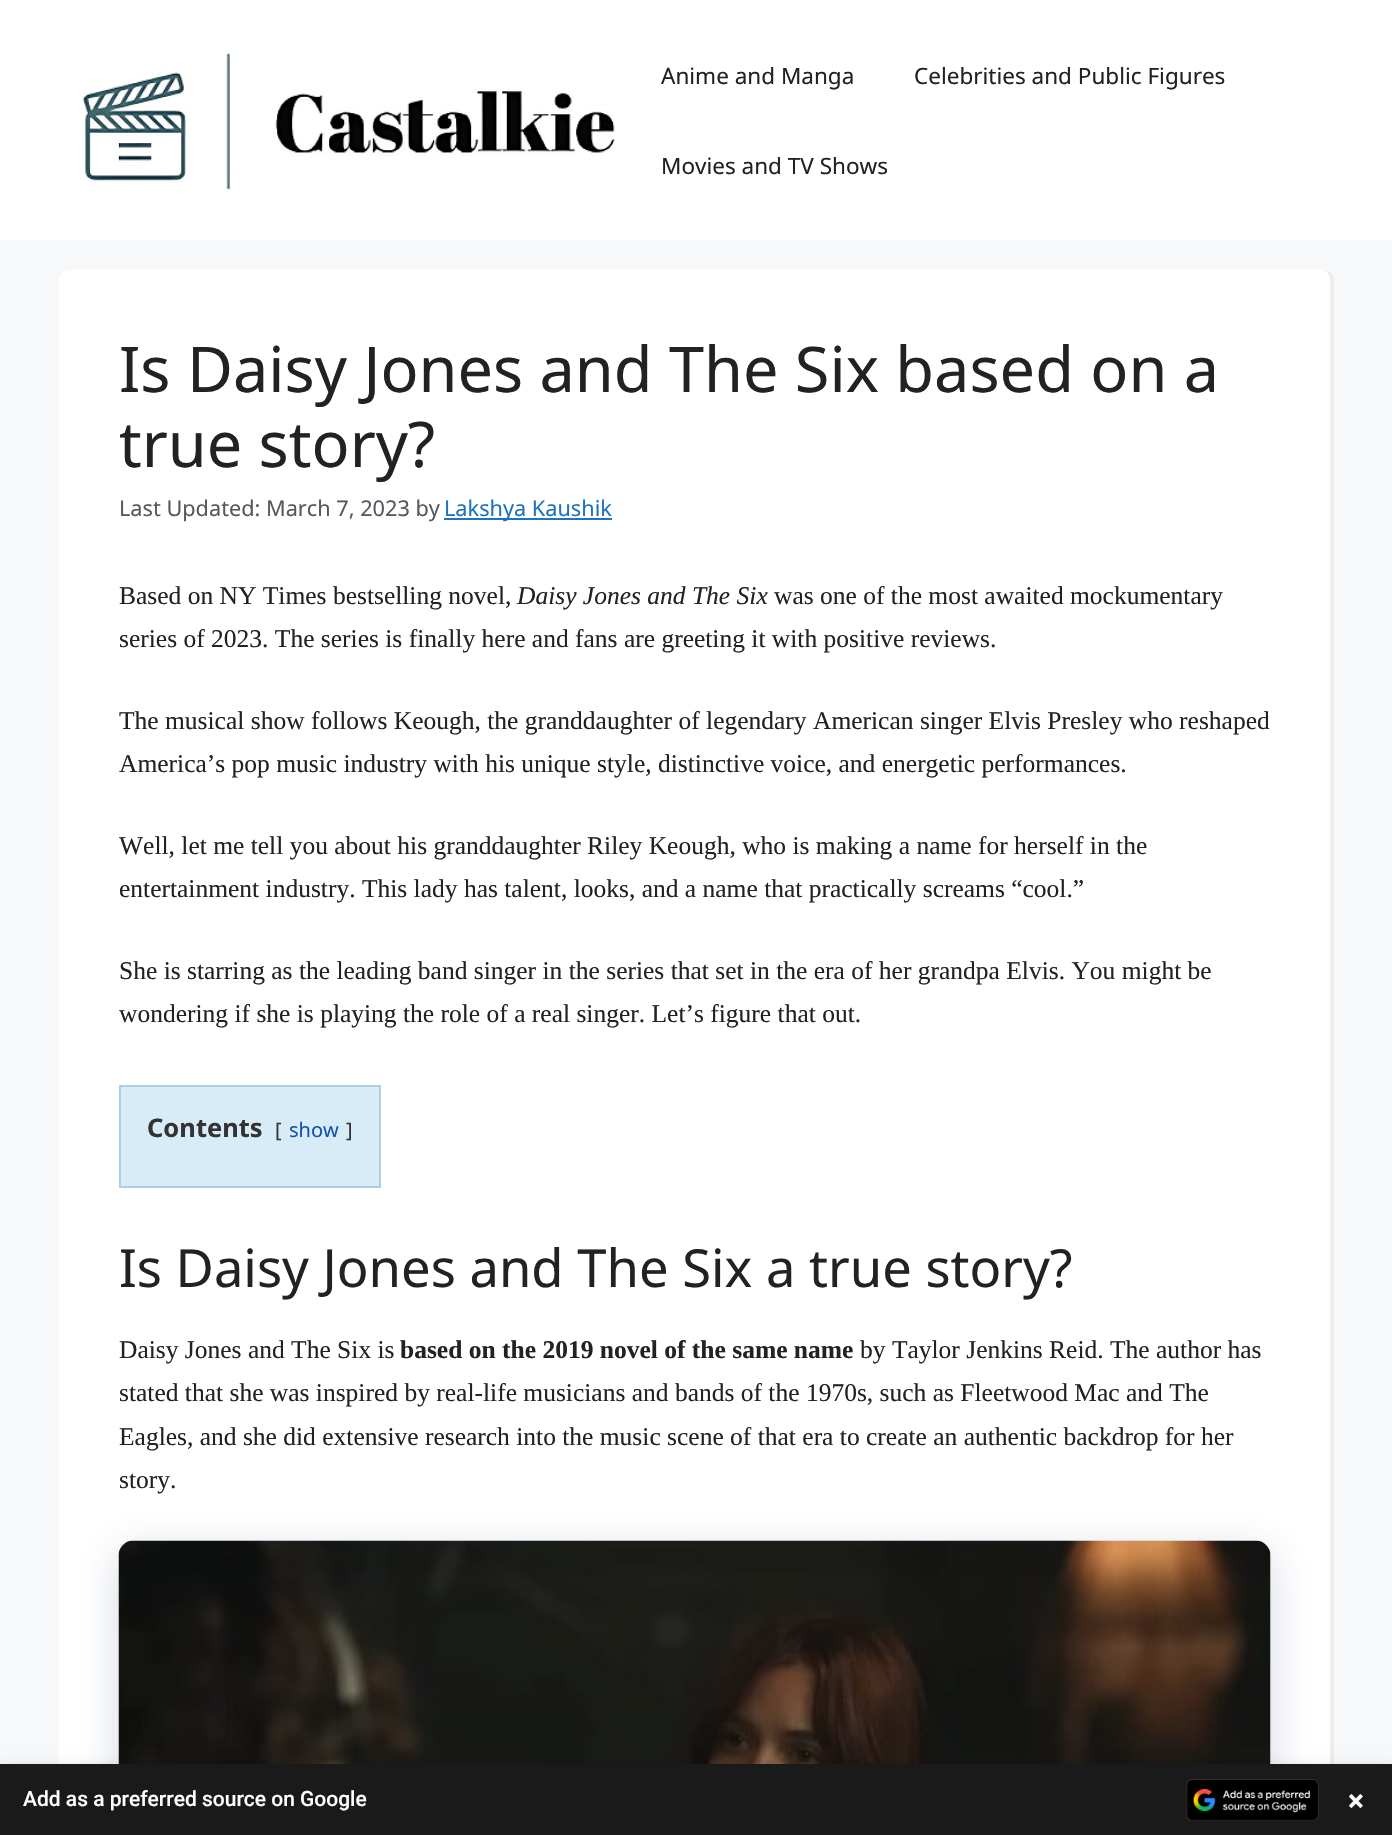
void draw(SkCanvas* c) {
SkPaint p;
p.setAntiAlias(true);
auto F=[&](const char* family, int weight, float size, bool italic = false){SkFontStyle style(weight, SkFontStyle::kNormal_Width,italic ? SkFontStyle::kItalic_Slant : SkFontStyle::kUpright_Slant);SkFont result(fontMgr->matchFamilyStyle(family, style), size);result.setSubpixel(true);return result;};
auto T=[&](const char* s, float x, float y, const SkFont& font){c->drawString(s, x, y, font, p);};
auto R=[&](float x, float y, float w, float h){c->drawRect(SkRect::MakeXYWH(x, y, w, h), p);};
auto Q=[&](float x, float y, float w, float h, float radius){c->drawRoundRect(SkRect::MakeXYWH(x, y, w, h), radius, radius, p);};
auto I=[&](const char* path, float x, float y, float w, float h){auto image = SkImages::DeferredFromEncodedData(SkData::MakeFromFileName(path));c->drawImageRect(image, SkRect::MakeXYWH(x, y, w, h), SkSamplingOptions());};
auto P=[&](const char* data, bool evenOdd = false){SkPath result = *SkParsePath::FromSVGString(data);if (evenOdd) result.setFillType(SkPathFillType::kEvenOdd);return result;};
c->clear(0xfff7f8f9);
p.setColor(0xffffffff);
R(0,0,1392,240);
I("1.png",83,53,532,137);
auto f1 = F("Noto Sans",400,22.5);
p.setColor(0xff222222);
T("Anime and Manga",661,84,f1);
T("Celebrities and Public Figures",914,84,f1);
T("Movies and TV Shows",661,174,f1);
p.setColor(0xffffffff);
Q(59,270,1275,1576,11);
p.setColor(0x12000000);
c->drawPath(P("M69 270h1254c6 0 11 5 11 10v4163c0 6-5 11-11 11h-1254c-6 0-11-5-11-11v-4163c0-5 5-10 11-10zm0 0h1254c4 0 7 5 7 10v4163c0 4-3 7-7 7h-1254c-6 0-11-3-11-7v-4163c0-5 5-10 11-10z",true),p);
auto f2 = F("Noto Sans",400,63);
p.setColor(0xff222222);
T("Is Daisy Jones and The Six based on a",119,392,f2);
T("true story?",119,467,f2);
auto f3 = F("Noto Sans",400,21.7);
p.setColor(0xff575760);
T("Last Updated: March 7, 2023 by",119,516,f3);
p.setColor(0xff1e73be);
R(444,518,168,2);
T("Lakshya Kaushik",444,516,f3);
auto f4 = F("Liberation Serif",400,25.5);
p.setColor(0xff222222);
T("Based on NY Times bestselling novel,",119,604,f4);
auto f5 = F("Liberation Serif",400,25.5,true);
T("Daisy Jones and The Six",517,604,f5);
T("was one of the most awaited mockumentary",774,604,f4);
T("series of 2023. The series is finally here and fans are greeting it with positive reviews.",119,647,f4);
T("The musical show follows Keough, the granddaughter of legendary American singer Elvis Presley who reshaped",119,729,f4);
T("America’s pop music industry with his unique style, distinctive voice, and energetic performances.",119,772,f4);
T("Well, let me tell you about his granddaughter Riley Keough, who is making a name for herself in the",119,854,f4);
T("entertainment industry. This lady has talent, looks, and a name that practically screams “cool.”",119,897,f4);
T("She is starring as the leading band singer in the series that set in the era of her grandpa Elvis. You might be",119,979,f4);
T("wondering if she is playing the role of a real singer. Let’s figure that out.",119,1022,f4);
p.setColor(0xffd8ecf7);
c->drawRect(SkRect::MakeXYWH(120,1086,260,101),p);
p.setStroke(true);
p.setStrokeWidth(2);
p.setColor(0xffafcde3);
c->drawRect(SkRect::MakeXYWH(120,1086,260,101),p);
auto f6 = F("Noto Sans",700,25.5);
p.setStroke(false);
p.setColor(0xff333333);
T("Contents",147,1137,f6);
auto f7 = F("Noto Sans",400,20);
T("[",275,1137,f7);
p.setColor(0xff1652b1);
T("show",289,1137,f7);
p.setColor(0xff333333);
T("]",346,1137,f7);
auto f8 = F("Noto Sans",400,52.5);
p.setColor(0xff222222);
T("Is Daisy Jones and The Six a true story?",119,1287,f8);
T("Daisy Jones and The Six is",119,1358,f4);
auto f9 = F("Liberation Serif",700,25.5);
T("based on the 2019 novel of the same name",400,1358,f9);
T("by Taylor Jenkins Reid. The author has",860,1358,f4);
T("stated that she was inspired by real-life musicians and bands of the 1970s, such as Fleetwood Mac and The",119,1401,f4);
T("Eagles, and she did extensive research into the music scene of that era to create an authentic backdrop for her",119,1445,f4);
T("story.",119,1488,f4);
p.setColor(0x2e172b63);
p.setMaskFilter(SkMaskFilter::MakeBlur(kNormal_SkBlurStyle, 21));
c->drawRoundRect(SkRect::MakeXYWH(119,1551,1152,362),15,15,p);
p.setMaskFilter(nullptr);
I("2.png",118,1540,1153,224);
p.setColor(0x26000000);
p.setMaskFilter(SkMaskFilter::MakeBlur(kNormal_SkBlurStyle, 6));
c->drawRect(SkRect::MakeXYWH(0,1767,1392,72),p);
p.setMaskFilter(nullptr);
p.setColor(0xff1a1a1a);
R(0,1764,1392,71);
auto f10 = F("Roboto",500,21);
p.setColor(0xffffffff);
T("Add as a preferred source on Google",23,1806,f10);
I("3.png",1186,1779,133,42);
auto f11 = F("Roboto",700,30);
T("×",1348,1811,f11);
}
